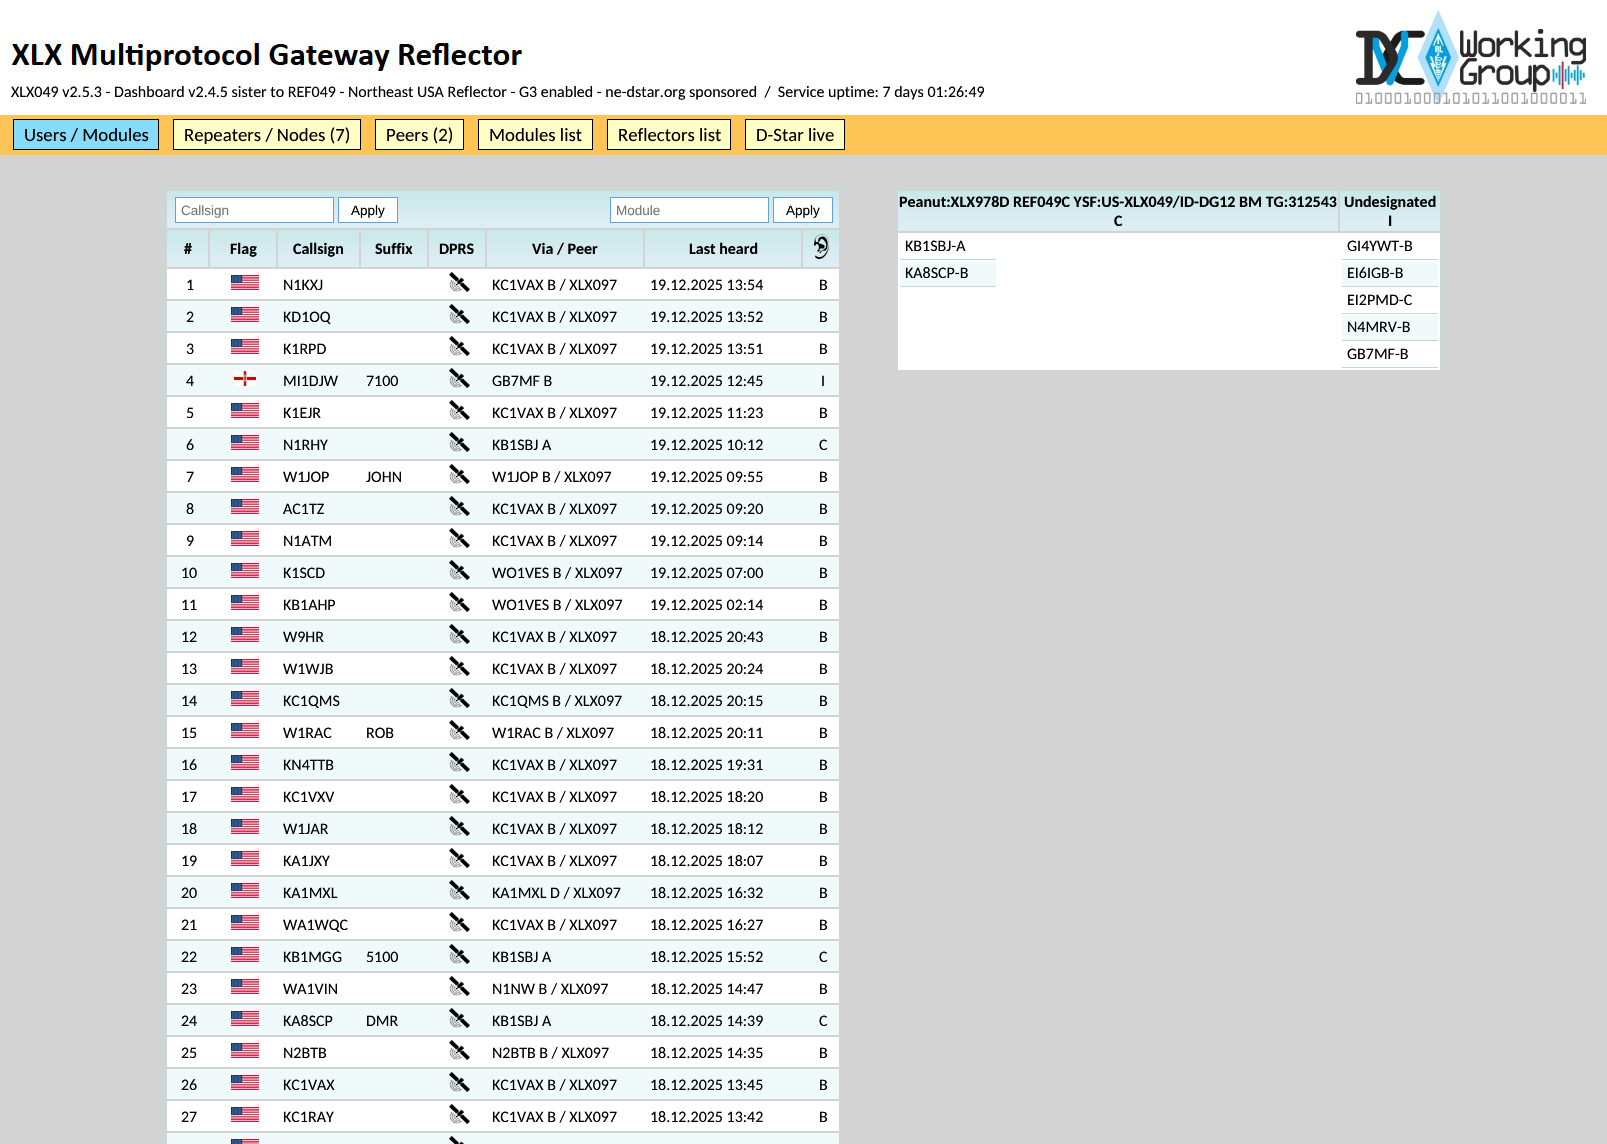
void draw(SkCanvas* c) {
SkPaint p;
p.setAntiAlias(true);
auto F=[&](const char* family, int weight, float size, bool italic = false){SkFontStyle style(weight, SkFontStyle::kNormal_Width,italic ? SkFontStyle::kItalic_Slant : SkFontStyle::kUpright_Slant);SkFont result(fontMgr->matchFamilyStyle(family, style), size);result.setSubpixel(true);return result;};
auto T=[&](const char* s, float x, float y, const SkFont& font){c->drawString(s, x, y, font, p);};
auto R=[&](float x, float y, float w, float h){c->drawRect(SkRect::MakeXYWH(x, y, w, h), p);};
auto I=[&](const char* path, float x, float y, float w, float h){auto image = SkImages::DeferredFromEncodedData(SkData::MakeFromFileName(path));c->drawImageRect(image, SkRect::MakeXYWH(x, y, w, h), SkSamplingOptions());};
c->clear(0xffd3d3d3);
p.setColor(0xffffffff);
R(0,0,1607,115);
I("1.png",1356,10,230,95);
I("2.png",8,39,520,32);
auto f1 = F("Carlito",400,16);
p.setColor(0xff000000);
T("XLX049 v2.5.3 - Dashboard v2.4.5 sister to REF049 - Northeast USA Reflector - G3 enabled - ne-dstar.org sponsored  /  Service uptime: 7 days 01:26:49",11,97,f1);
p.setColor(0xfffec456);
R(0,115,1607,40);
p.setColor(0xff87dcfc);
c->drawRect(SkRect::MakeXYWH(13.5,119.5,145,30),p);
p.setStroke(true);
p.setStrokeWidth(1);
p.setColor(0xff000000);
c->drawRect(SkRect::MakeXYWH(13.5,119.5,145,30),p);
auto f2 = F("Carlito",400,18.75);
p.setStroke(false);
T("Users / Modules",24,141,f2);
p.setColor(0xffffffc6);
c->drawRect(SkRect::MakeXYWH(173.5,119.5,187,30),p);
p.setStroke(true);
p.setColor(0xff000000);
c->drawRect(SkRect::MakeXYWH(173.5,119.5,187,30),p);
p.setStroke(false);
T("Repeaters / Nodes (7)",184,141,f2);
p.setColor(0xffffffc6);
c->drawRect(SkRect::MakeXYWH(375.5,119.5,88,30),p);
p.setStroke(true);
p.setColor(0xff000000);
c->drawRect(SkRect::MakeXYWH(375.5,119.5,88,30),p);
p.setStroke(false);
T("Peers (2)",386,141,f2);
p.setColor(0xffffffc6);
c->drawRect(SkRect::MakeXYWH(478.5,119.5,114,30),p);
p.setStroke(true);
p.setColor(0xff000000);
c->drawRect(SkRect::MakeXYWH(478.5,119.5,114,30),p);
p.setStroke(false);
T("Modules list",489,141,f2);
p.setColor(0xffffffc6);
c->drawRect(SkRect::MakeXYWH(607.5,119.5,123,30),p);
p.setStroke(true);
p.setColor(0xff000000);
c->drawRect(SkRect::MakeXYWH(607.5,119.5,123,30),p);
p.setStroke(false);
T("Reflectors list",618,141,f2);
p.setColor(0xffffffc6);
c->drawRect(SkRect::MakeXYWH(745.5,119.5,99,30),p);
p.setStroke(true);
p.setColor(0xff000000);
c->drawRect(SkRect::MakeXYWH(745.5,119.5,99,30),p);
p.setStroke(false);
T("D-Star live",756,141,f2);
p.setStroke(true);
p.setColor(0xffc1dad7);
c->drawRect(SkRect::MakeXYWH(164.5,188.5,677,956),p);
p.setStroke(false);
{
const SkColor colors[] = {0xffc9e7e9,0xffdcedf4};
const float stops[] = {0,.8};
const SkPoint ends[] = {{503,191}, {503,228}};
p.setShader(SkGradientShader::MakeLinear(ends, colors, stops, 2, SkTileMode::kClamp));
p.setAlpha(255);
}
R(167,191,672,37);
p.setShader(nullptr);
p.setColor(0xffffffff);
c->drawRect(SkRect::MakeXYWH(175.5,197.5,158,25),p);
p.setStroke(true);
p.setColor(0xff60a1de);
c->drawRect(SkRect::MakeXYWH(175.5,197.5,158,25),p);
auto f3 = F("Liberation Sans",400,13.5);
p.setStroke(false);
p.setColor(0xff757575);
T("Callsign",181,215,f3);
p.setColor(0xffffffff);
c->drawRect(SkRect::MakeXYWH(338.5,197.5,59,25),p);
p.setStroke(true);
p.setColor(0xff60a1de);
c->drawRect(SkRect::MakeXYWH(338.5,197.5,59,25),p);
p.setStroke(false);
p.setColor(0xff000000);
T("Apply",351,215,f3);
p.setColor(0xffffffff);
c->drawRect(SkRect::MakeXYWH(610.5,197.5,158,25),p);
p.setStroke(true);
p.setColor(0xff60a1de);
c->drawRect(SkRect::MakeXYWH(610.5,197.5,158,25),p);
p.setStroke(false);
p.setColor(0xff757575);
T("Module",616,215,f3);
p.setColor(0xffffffff);
c->drawRect(SkRect::MakeXYWH(773.5,197.5,59,25),p);
p.setStroke(true);
p.setColor(0xff60a1de);
c->drawRect(SkRect::MakeXYWH(773.5,197.5,59,25),p);
p.setStroke(false);
p.setColor(0xff000000);
T("Apply",786,215,f3);
{
const SkColor colors[] = {0xffc9e7e9,0xffdcedf4};
const float stops[] = {0,.8};
const SkPoint ends[] = {{188,230}, {188,267}};
p.setShader(SkGradientShader::MakeLinear(ends, colors, stops, 2, SkTileMode::kClamp));
p.setAlpha(255);
}
R(167,230,41,37);
auto f4 = F("Carlito",700,16);
p.setShader(nullptr);
p.setColor(0xff000000);
T("#",184,254,f4);
{
const SkColor colors[] = {0xffc9e7e9,0xffdcedf4};
const float stops[] = {0,.8};
const SkPoint ends[] = {{243,230}, {243,267}};
p.setShader(SkGradientShader::MakeLinear(ends, colors, stops, 2, SkTileMode::kClamp));
p.setAlpha(255);
}
R(210,230,66,37);
p.setShader(nullptr);
p.setColor(0xff000000);
T("Flag",230,254,f4);
{
const SkColor colors[] = {0xffc9e7e9,0xffdcedf4};
const float stops[] = {0,.8};
const SkPoint ends[] = {{319,230}, {319,267}};
p.setShader(SkGradientShader::MakeLinear(ends, colors, stops, 2, SkTileMode::kClamp));
p.setAlpha(255);
}
R(278,230,81,37);
p.setShader(nullptr);
p.setColor(0xff000000);
T("Callsign",293,254,f4);
{
const SkColor colors[] = {0xffc9e7e9,0xffdcedf4};
const float stops[] = {0,.8};
const SkPoint ends[] = {{394,230}, {394,267}};
p.setShader(SkGradientShader::MakeLinear(ends, colors, stops, 2, SkTileMode::kClamp));
p.setAlpha(255);
}
R(361,230,66,37);
p.setShader(nullptr);
p.setColor(0xff000000);
T("Suffix",375,254,f4);
{
const SkColor colors[] = {0xffc9e7e9,0xffdcedf4};
const float stops[] = {0,.8};
const SkPoint ends[] = {{457,230}, {457,267}};
p.setShader(SkGradientShader::MakeLinear(ends, colors, stops, 2, SkTileMode::kClamp));
p.setAlpha(255);
}
R(429,230,56,37);
p.setShader(nullptr);
p.setColor(0xff000000);
T("DPRS",439,254,f4);
{
const SkColor colors[] = {0xffc9e7e9,0xffdcedf4};
const float stops[] = {0,.8};
const SkPoint ends[] = {{565,230}, {565,267}};
p.setShader(SkGradientShader::MakeLinear(ends, colors, stops, 2, SkTileMode::kClamp));
p.setAlpha(255);
}
R(487,230,156,37);
p.setShader(nullptr);
p.setColor(0xff000000);
T("Via / Peer",532,254,f4);
{
const SkColor colors[] = {0xffc9e7e9,0xffdcedf4};
const float stops[] = {0,.8};
const SkPoint ends[] = {{723,230}, {723,267}};
p.setShader(SkGradientShader::MakeLinear(ends, colors, stops, 2, SkTileMode::kClamp));
p.setAlpha(255);
}
R(645,230,156,37);
p.setShader(nullptr);
p.setColor(0xff000000);
T("Last heard",689,254,f4);
{
const SkColor colors[] = {0xffc9e7e9,0xffdcedf4};
const float stops[] = {0,.8};
const SkPoint ends[] = {{821,230}, {821,267}};
p.setShader(SkGradientShader::MakeLinear(ends, colors, stops, 2, SkTileMode::kClamp));
p.setAlpha(255);
}
R(803,230,36,37);
I("3.png",814,234,15,25);
p.setShader(nullptr);
p.setColor(0xffffffff);
R(167,269,672,30);
p.setColor(0xff000000);
T("1",186,290,f1);
I("4.png",231,275,28,15);
T("N1KXJ",283,290,f1);
I("5.png",449,272,21,20);
T("KC1VAX B / XLX097",492,290,f1);
T("19.12.2025 13:54",650,290,f1);
T("B",819,290,f1);
p.setColor(0xfff1fafa);
R(167,301,672,30);
p.setColor(0xff000000);
T("2",186,322,f1);
I("4.png",231,307,28,15);
T("KD1OQ",283,322,f1);
I("6.png",449,304,21,20);
T("KC1VAX B / XLX097",492,322,f1);
T("19.12.2025 13:52",650,322,f1);
T("B",819,322,f1);
p.setColor(0xffffffff);
R(167,333,672,30);
p.setColor(0xff000000);
T("3",186,354,f1);
I("4.png",231,339,28,15);
T("K1RPD",283,354,f1);
I("5.png",449,336,21,20);
T("KC1VAX B / XLX097",492,354,f1);
T("19.12.2025 13:51",650,354,f1);
T("B",819,354,f1);
p.setColor(0xfff1fafa);
R(167,365,672,30);
p.setColor(0xff000000);
T("4",186,386,f1);
I("7.png",234,371,22,15);
T("MI1DJW",283,386,f1);
T("7100",366,386,f1);
I("6.png",449,368,21,20);
T("GB7MF B",492,386,f1);
T("19.12.2025 12:45",650,386,f1);
T("I",821,386,f1);
p.setColor(0xffffffff);
R(167,397,672,30);
p.setColor(0xff000000);
T("5",186,418,f1);
I("4.png",231,403,28,15);
T("K1EJR",283,418,f1);
I("5.png",449,400,21,20);
T("KC1VAX B / XLX097",492,418,f1);
T("19.12.2025 11:23",650,418,f1);
T("B",819,418,f1);
p.setColor(0xfff1fafa);
R(167,429,672,30);
p.setColor(0xff000000);
T("6",186,450,f1);
I("4.png",231,435,28,15);
T("N1RHY",283,450,f1);
I("6.png",449,432,21,20);
T("KB1SBJ A",492,450,f1);
T("19.12.2025 10:12",650,450,f1);
T("C",819,450,f1);
p.setColor(0xffffffff);
R(167,461,672,30);
p.setColor(0xff000000);
T("7",186,482,f1);
I("4.png",231,467,28,15);
T("W1JOP",283,482,f1);
T("JOHN",366,482,f1);
I("5.png",449,464,21,20);
T("W1JOP B / XLX097",492,482,f1);
T("19.12.2025 09:55",650,482,f1);
T("B",819,482,f1);
p.setColor(0xfff1fafa);
R(167,493,672,30);
p.setColor(0xff000000);
T("8",186,514,f1);
I("4.png",231,499,28,15);
T("AC1TZ",283,514,f1);
I("6.png",449,496,21,20);
T("KC1VAX B / XLX097",492,514,f1);
T("19.12.2025 09:20",650,514,f1);
T("B",819,514,f1);
p.setColor(0xffffffff);
R(167,525,672,30);
p.setColor(0xff000000);
T("9",186,546,f1);
I("4.png",231,531,28,15);
T("N1ATM",283,546,f1);
I("5.png",449,528,21,20);
T("KC1VAX B / XLX097",492,546,f1);
T("19.12.2025 09:14",650,546,f1);
T("B",819,546,f1);
p.setColor(0xfff1fafa);
R(167,557,672,30);
p.setColor(0xff000000);
T("10",181,578,f1);
I("4.png",231,563,28,15);
T("K1SCD",283,578,f1);
I("6.png",449,560,21,20);
T("WO1VES B / XLX097",492,578,f1);
T("19.12.2025 07:00",650,578,f1);
T("B",819,578,f1);
p.setColor(0xffffffff);
R(167,589,672,30);
p.setColor(0xff000000);
T("11",181,610,f1);
I("4.png",231,595,28,15);
T("KB1AHP",283,610,f1);
I("5.png",449,592,21,20);
T("WO1VES B / XLX097",492,610,f1);
T("19.12.2025 02:14",650,610,f1);
T("B",819,610,f1);
p.setColor(0xfff1fafa);
R(167,621,672,30);
p.setColor(0xff000000);
T("12",181,642,f1);
I("4.png",231,627,28,15);
T("W9HR",283,642,f1);
I("6.png",449,624,21,20);
T("KC1VAX B / XLX097",492,642,f1);
T("18.12.2025 20:43",650,642,f1);
T("B",819,642,f1);
p.setColor(0xffffffff);
R(167,653,672,30);
p.setColor(0xff000000);
T("13",181,674,f1);
I("4.png",231,659,28,15);
T("W1WJB",283,674,f1);
I("5.png",449,656,21,20);
T("KC1VAX B / XLX097",492,674,f1);
T("18.12.2025 20:24",650,674,f1);
T("B",819,674,f1);
p.setColor(0xfff1fafa);
R(167,685,672,30);
p.setColor(0xff000000);
T("14",181,706,f1);
I("4.png",231,691,28,15);
T("KC1QMS",283,706,f1);
I("6.png",449,688,21,20);
T("KC1QMS B / XLX097",492,706,f1);
T("18.12.2025 20:15",650,706,f1);
T("B",819,706,f1);
p.setColor(0xffffffff);
R(167,717,672,30);
p.setColor(0xff000000);
T("15",181,738,f1);
I("4.png",231,723,28,15);
T("W1RAC",283,738,f1);
T("ROB",366,738,f1);
I("5.png",449,720,21,20);
T("W1RAC B / XLX097",492,738,f1);
T("18.12.2025 20:11",650,738,f1);
T("B",819,738,f1);
p.setColor(0xfff1fafa);
R(167,749,672,30);
p.setColor(0xff000000);
T("16",181,770,f1);
I("4.png",231,755,28,15);
T("KN4TTB",283,770,f1);
I("6.png",449,752,21,20);
T("KC1VAX B / XLX097",492,770,f1);
T("18.12.2025 19:31",650,770,f1);
T("B",819,770,f1);
p.setColor(0xffffffff);
R(167,781,672,30);
p.setColor(0xff000000);
T("17",181,802,f1);
I("4.png",231,787,28,15);
T("KC1VXV",283,802,f1);
I("5.png",449,784,21,20);
T("KC1VAX B / XLX097",492,802,f1);
T("18.12.2025 18:20",650,802,f1);
T("B",819,802,f1);
p.setColor(0xfff1fafa);
R(167,813,672,30);
p.setColor(0xff000000);
T("18",181,834,f1);
I("4.png",231,819,28,15);
T("W1JAR",283,834,f1);
I("6.png",449,816,21,20);
T("KC1VAX B / XLX097",492,834,f1);
T("18.12.2025 18:12",650,834,f1);
T("B",819,834,f1);
p.setColor(0xffffffff);
R(167,845,672,30);
p.setColor(0xff000000);
T("19",181,866,f1);
I("4.png",231,851,28,15);
T("KA1JXY",283,866,f1);
I("5.png",449,848,21,20);
T("KC1VAX B / XLX097",492,866,f1);
T("18.12.2025 18:07",650,866,f1);
T("B",819,866,f1);
p.setColor(0xfff1fafa);
R(167,877,672,30);
p.setColor(0xff000000);
T("20",181,898,f1);
I("4.png",231,883,28,15);
T("KA1MXL",283,898,f1);
I("6.png",449,880,21,20);
T("KA1MXL D / XLX097",492,898,f1);
T("18.12.2025 16:32",650,898,f1);
T("B",819,898,f1);
p.setColor(0xffffffff);
R(167,909,672,30);
p.setColor(0xff000000);
T("21",181,930,f1);
I("4.png",231,915,28,15);
T("WA1WQC",283,930,f1);
I("5.png",449,912,21,20);
T("KC1VAX B / XLX097",492,930,f1);
T("18.12.2025 16:27",650,930,f1);
T("B",819,930,f1);
p.setColor(0xfff1fafa);
R(167,941,672,30);
p.setColor(0xff000000);
T("22",181,962,f1);
I("4.png",231,947,28,15);
T("KB1MGG",283,962,f1);
T("5100",366,962,f1);
I("6.png",449,944,21,20);
T("KB1SBJ A",492,962,f1);
T("18.12.2025 15:52",650,962,f1);
T("C",819,962,f1);
p.setColor(0xffffffff);
R(167,973,672,30);
p.setColor(0xff000000);
T("23",181,994,f1);
I("4.png",231,979,28,15);
T("WA1VIN",283,994,f1);
I("5.png",449,976,21,20);
T("N1NW B / XLX097",492,994,f1);
T("18.12.2025 14:47",650,994,f1);
T("B",819,994,f1);
p.setColor(0xfff1fafa);
R(167,1005,672,30);
p.setColor(0xff000000);
T("24",181,1026,f1);
I("4.png",231,1011,28,15);
T("KA8SCP",283,1026,f1);
T("DMR",366,1026,f1);
I("6.png",449,1008,21,20);
T("KB1SBJ A",492,1026,f1);
T("18.12.2025 14:39",650,1026,f1);
T("C",819,1026,f1);
p.setColor(0xffffffff);
R(167,1037,672,30);
p.setColor(0xff000000);
T("25",181,1058,f1);
I("4.png",231,1043,28,15);
T("N2BTB",283,1058,f1);
I("5.png",449,1040,21,20);
T("N2BTB B / XLX097",492,1058,f1);
T("18.12.2025 14:35",650,1058,f1);
T("B",819,1058,f1);
p.setColor(0xfff1fafa);
R(167,1069,672,30);
p.setColor(0xff000000);
T("26",181,1090,f1);
I("4.png",231,1075,28,15);
T("KC1VAX",283,1090,f1);
I("6.png",449,1072,21,20);
T("KC1VAX B / XLX097",492,1090,f1);
T("18.12.2025 13:45",650,1090,f1);
T("B",819,1090,f1);
p.setColor(0xffffffff);
R(167,1101,672,30);
p.setColor(0xff000000);
T("27",181,1122,f1);
I("4.png",231,1107,28,15);
T("KC1RAY",283,1122,f1);
I("5.png",449,1104,21,20);
T("KC1VAX B / XLX097",492,1122,f1);
T("18.12.2025 13:42",650,1122,f1);
T("B",819,1122,f1);
p.setColor(0xfff1fafa);
R(167,1133,672,11);
I("8.png",231,1139,28,5);
I("9.png",449,1136,15,8);
p.setStroke(true);
p.setColor(0xffc1dad7);
c->drawRect(SkRect::MakeXYWH(895.5,188.5,547,184),p);
p.setStroke(false);
{
const SkColor colors[] = {0xffc9e7e9,0xffdcedf4};
const float stops[] = {0,.8};
const SkPoint ends[] = {{1118,191}, {1118,231}};
p.setShader(SkGradientShader::MakeLinear(ends, colors, stops, 2, SkTileMode::kClamp));
p.setAlpha(255);
}
R(898,191,440,40);
p.setShader(nullptr);
p.setColor(0xff000000);
T("Peanut:XLX978D REF049C YSF:US-XLX049/ID-DG12 BM TG:312543",899,207,f4);
T("C",1114,226,f4);
{
const SkColor colors[] = {0xffc9e7e9,0xffdcedf4};
const float stops[] = {0,.8};
const SkPoint ends[] = {{1390,191}, {1390,231}};
p.setShader(SkGradientShader::MakeLinear(ends, colors, stops, 2, SkTileMode::kClamp));
p.setAlpha(255);
}
R(1340,191,100,40);
p.setShader(nullptr);
p.setColor(0xff000000);
T("Undesignated",1344,207,f4);
T("I",1388,226,f4);
p.setColor(0xffffffff);
R(898,233,542,137);
p.setColor(0xffc1dad7);
R(900,259,96,1);
p.setColor(0xff000000);
T("KB1SBJ-A",905,251,f1);
p.setColor(0xfff1fafa);
R(900,262,96,24);
p.setColor(0xffc1dad7);
R(900,286,96,1);
p.setColor(0xff000000);
T("KA8SCP-B",905,278,f1);
p.setColor(0xffc1dad7);
R(1342,259,96,1);
p.setColor(0xff000000);
T("GI4YWT-B",1347,251,f1);
p.setColor(0xfff1fafa);
R(1342,262,96,24);
p.setColor(0xffc1dad7);
R(1342,286,96,1);
p.setColor(0xff000000);
T("EI6IGB-B",1347,278,f1);
p.setColor(0xffc1dad7);
R(1342,313,96,1);
p.setColor(0xff000000);
T("EI2PMD-C",1347,305,f1);
p.setColor(0xfff1fafa);
R(1342,316,96,24);
p.setColor(0xffc1dad7);
R(1342,340,96,1);
p.setColor(0xff000000);
T("N4MRV-B",1347,332,f1);
p.setColor(0xffc1dad7);
R(1342,367,96,1);
p.setColor(0xff000000);
T("GB7MF-B",1347,359,f1);
}
